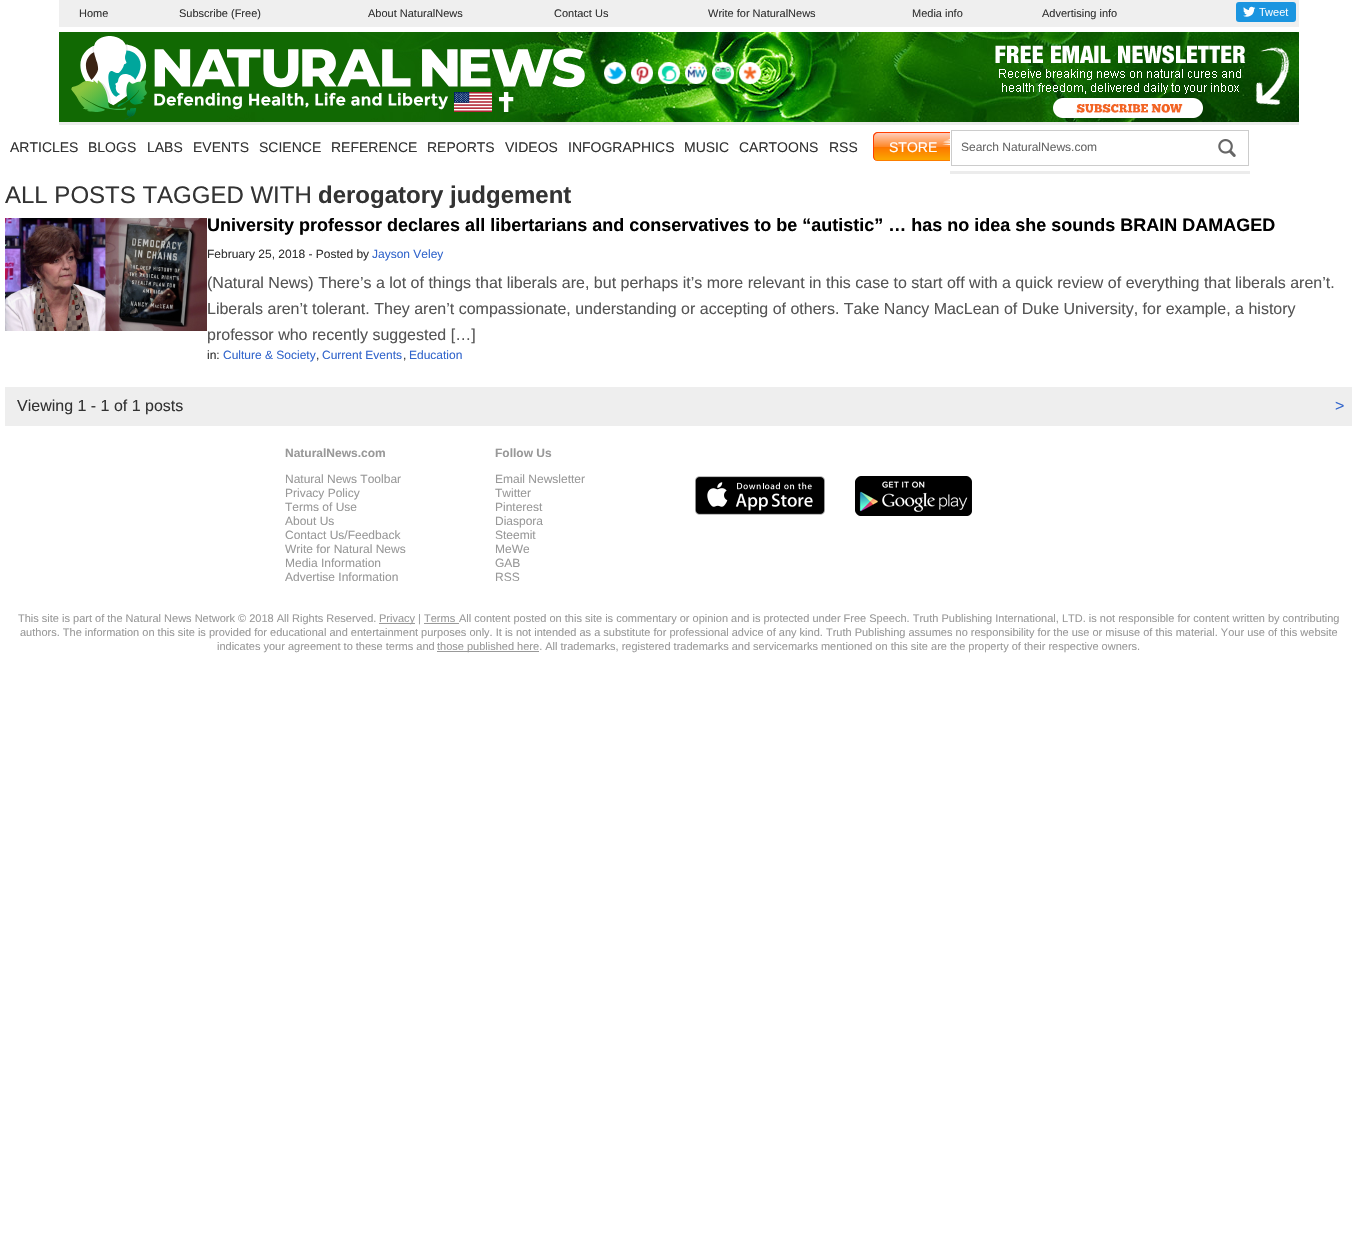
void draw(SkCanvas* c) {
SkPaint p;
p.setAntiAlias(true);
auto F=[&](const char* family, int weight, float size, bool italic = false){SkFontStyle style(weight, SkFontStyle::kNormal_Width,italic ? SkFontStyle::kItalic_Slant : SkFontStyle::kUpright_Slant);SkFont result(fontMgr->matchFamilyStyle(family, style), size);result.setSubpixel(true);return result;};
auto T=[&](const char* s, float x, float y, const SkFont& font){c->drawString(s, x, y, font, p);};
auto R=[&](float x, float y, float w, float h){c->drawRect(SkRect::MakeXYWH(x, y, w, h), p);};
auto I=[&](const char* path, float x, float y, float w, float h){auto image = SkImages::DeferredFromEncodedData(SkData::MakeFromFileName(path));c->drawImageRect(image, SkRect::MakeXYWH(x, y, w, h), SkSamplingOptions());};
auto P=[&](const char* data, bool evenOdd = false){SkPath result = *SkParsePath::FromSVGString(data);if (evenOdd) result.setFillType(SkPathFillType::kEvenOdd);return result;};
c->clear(0xffffffff);
p.setColor(0xffefefef);
R(59,0,1240,27);
auto f1 = F("Liberation Sans",400,11);
p.setColor(0xff333333);
T("Home",79,17,f1);
T("Subscribe (Free)",179,17,f1);
T("About NaturalNews",368,17,f1);
T("Contact Us",554,17,f1);
T("Write for NaturalNews",708,17,f1);
T("Media info",912,17,f1);
T("Advertising info",1042,17,f1);
I("1.png",1236,2,60,20);
I("2.png",59,32,1240,90);
p.setColor(0xffececec);
R(59,122,1240,3);
I("3.png",71,36,514,84);
I("4.png",604,62,22,22);
I("5.png",631,62,22,22);
I("6.png",658,62,22,22);
I("7.png",685,62,22,22);
I("8.png",712,62,22,22);
I("9.png",739,62,22,22);
I("10.png",995,45,295,73);
auto f2 = F("Liberation Sans",400,14);
p.setColor(0xff333333);
T("ARTICLES",10,152,f2);
T("BLOGS",88,152,f2);
T("LABS",147,152,f2);
T("EVENTS",193,152,f2);
T("SCIENCE",259,152,f2);
T("REFERENCE",331,152,f2);
T("REPORTS",427,152,f2);
T("VIDEOS",505,152,f2);
T("INFOGRAPHICS",568,152,f2);
T("MUSIC",684,152,f2);
T("CARTOONS",739,152,f2);
T("RSS",829,152,f2);
c->save();
c->clipPath(P("M878 132h100c3 0 5 2 5 5v19c0 3-2 5-5 5h-100c-3 0-5-2-5-5v-19c0-3 2-5 5-5z"),true);
{
const SkColor colors[] = {0xffffcdbc,0xfffe8828,0xfffc7500,0xfffba800,0xffff4001};
const float stops[] = {0,.49,.5,.97,1};
const SkPoint ends[] = {{928,133}, {928,161}};
p.setShader(SkGradientShader::MakeLinear(ends, colors, stops, 5, SkTileMode::kClamp));
p.setAlpha(255);
}
c->drawPath(P("M873 133h110v23c0 3-2 5-5 5h-100c-3 0-5-2-5-5z"),p);
c->restore();
p.setShader(nullptr);
p.setColor(0xffff4001);
c->drawPath(P("M878 132h100c3 0 5 2 5 5v19c0 3-2 5-5 5h-100c-3 0-5-2-5-5v-19c0-3 2-5 5-5zm0 1h100c2 0 4 2 4 4v19c0 3-2 5-4 5h-100c-2 0-4-2-4-5v-19c0-2 2-4 4-4z",true),p);
p.setColor(0xffffffff);
T("STORE",889,152,f2);
I("11.png",942,139,8,6);
R(950,132,33,29);
p.setColor(0xffececec);
R(950,171,300,3);
p.setStroke(true);
p.setStrokeWidth(1);
p.setColor(0xffcccccc);
c->drawRect(SkRect::MakeXYWH(951.5,130.5,297,35),p);
auto f3 = F("Liberation Sans",400,12);
p.setStroke(false);
p.setColor(0xff666666);
T("Search NaturalNews.com",961,151,f3);
I("12.png",1218,139,18,18);
auto f4 = F("Liberation Sans",400,24);
p.setColor(0xff333333);
T("ALL POSTS TAGGED WITH",5,203,f4);
auto f5 = F("Liberation Sans",700,24);
T("derogatory judgement",318,203,f5);
I("13.png",5,218,202,113);
auto f6 = F("Liberation Sans",700,18);
p.setColor(0xff000000);
T("University professor declares all libertarians and conservatives to be “autistic” … has no idea she sounds BRAIN DAMAGED",207,231,f6);
p.setColor(0xff333333);
T("February 25, 2018 - Posted by",207,258,f3);
p.setColor(0xff3366cc);
T("Jayson Veley",372,258,f3);
auto f7 = F("Liberation Sans",400,16);
p.setColor(0xff555555);
T("(Natural News) There’s a lot of things that liberals are, but perhaps it’s more relevant in this case to start off with a quick review of everything that liberals aren’t.",207,288,f7);
T("Liberals aren’t tolerant. They aren’t compassionate, understanding or accepting of others. Take Nancy MacLean of Duke University, for example, a history",207,314,f7);
T("professor who recently suggested […]",207,340,f7);
p.setColor(0xff333333);
T("in:",207,359,f3);
p.setColor(0xff3366cc);
T("Culture & Society",223,359,f3);
p.setColor(0xff333333);
T(",",316,359,f3);
p.setColor(0xff3366cc);
T("Current Events",322,359,f3);
p.setColor(0xff333333);
T(",",403,359,f3);
p.setColor(0xff3366cc);
T("Education",409,359,f3);
p.setColor(0xffeeeeee);
R(5,387,1347,39);
p.setColor(0xff333333);
T("Viewing 1 - 1 of 1 posts",17,411,f7);
p.setColor(0xff3366cc);
T(">",1335,411,f7);
auto f8 = F("Liberation Sans",700,12);
p.setColor(0xff999999);
T("NaturalNews.com",285,457,f8);
T("Natural News Toolbar",285,483,f3);
T("Privacy Policy",285,497,f3);
T("Terms of Use",285,511,f3);
T("About Us",285,525,f3);
T("Contact Us/Feedback",285,539,f3);
T("Write for Natural News",285,553,f3);
T("Media Information",285,567,f3);
T("Advertise Information",285,581,f3);
T("Follow Us",495,457,f8);
T("Email Newsletter",495,483,f3);
T("Twitter",495,497,f3);
T("Pinterest",495,511,f3);
T("Diaspora",495,525,f3);
T("Steemit",495,539,f3);
T("MeWe",495,553,f3);
T("GAB",495,567,f3);
T("RSS",495,581,f3);
I("14.png",695,476,130,39);
I("15.png",855,476,117,40);
T("This site is part of the Natural News Network © 2018 All Rights Reserved.",18,622,f1);
R(379,623,36,1);
T("Privacy | Terms",379,622,f1);
R(424,623,35,1);
T("All content posted on this site is commentary or opinion and is protected under Free Speech. Truth Publishing International, LTD. is not responsible for content written by contributing",459,622,f1);
T("authors. The information on this site is provided for educational and entertainment purposes only. It is not intended as a substitute for professional advice of any kind. Truth Publishing assumes no responsibility for the use or misuse of this material. Your use of this website",20,636,f1);
T("indicates your agreement to these terms and",217,650,f1);
R(437,651,102,1);
T("those published here. All trademarks, registered trademarks and servicemarks mentioned on this site are the property of their respective owners.",437,650,f1);
}
